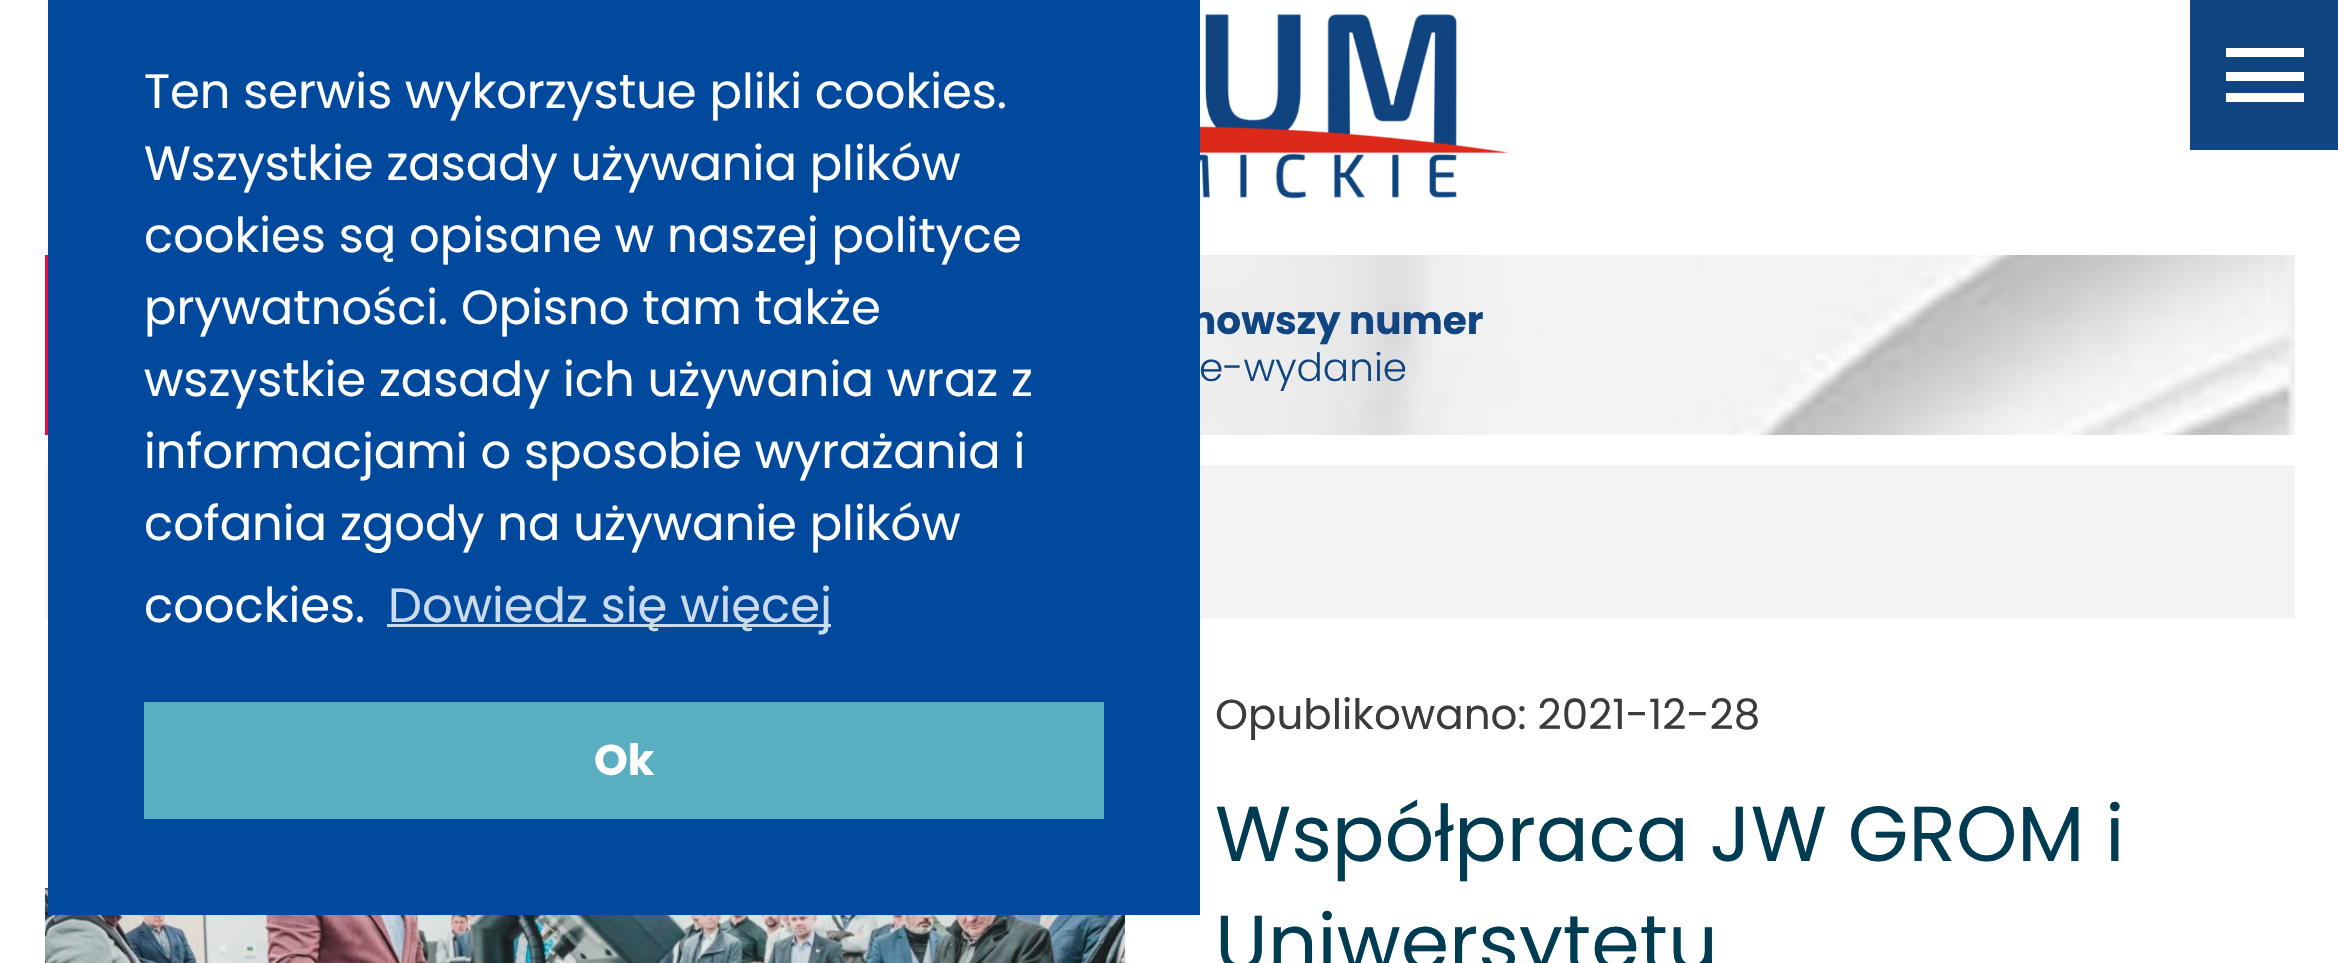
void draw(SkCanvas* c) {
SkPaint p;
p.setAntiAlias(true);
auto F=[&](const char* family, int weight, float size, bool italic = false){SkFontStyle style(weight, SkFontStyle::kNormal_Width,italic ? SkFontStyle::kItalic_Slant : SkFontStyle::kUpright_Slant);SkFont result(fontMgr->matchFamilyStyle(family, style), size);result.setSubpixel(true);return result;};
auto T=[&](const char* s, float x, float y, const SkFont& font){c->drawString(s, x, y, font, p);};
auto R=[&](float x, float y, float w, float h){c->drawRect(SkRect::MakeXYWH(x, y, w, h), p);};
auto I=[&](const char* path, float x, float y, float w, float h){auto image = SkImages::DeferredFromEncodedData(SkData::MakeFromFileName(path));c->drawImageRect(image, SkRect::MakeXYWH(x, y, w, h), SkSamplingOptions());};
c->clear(0xffffffff);
I("2.png",1200,255,1095,180);
auto f1 = F("Poppins",700,39);
p.setColor(0xff104581);
T("nowszy numer",1190,334,f1);
p.setColor(0xfff4f4f4);
R(45,465,2250,153);
I("3.png",45,888,1080,75);
p.setColor(0xff00499c);
R(48,0,1152,915);
auto f2 = F("Poppins",400,48);
p.setColor(0xffffffff);
T("Ten serwis wykorzystue pliki cookies.",144,108,f2);
T("Wszystkie zasady używania plików",144,180,f2);
T("cookies są opisane w naszej polityce",144,252,f2);
T("prywatności. Opisno tam także",144,324,f2);
T("wszystkie zasady ich używania wraz z",144,396,f2);
T("informacjami o sposobie wyrażania i",144,468,f2);
T("cofania zgody na używanie plików",144,540,f2);
T("coockies.",144,622,f2);
p.setColor(0xffccdbeb);
R(387,624,444,3);
T("Dowiedz się więcej",388,622,f2);
p.setColor(0xff59afc1);
R(144,702,960,117);
auto f3 = F("Poppins",700,43);
p.setColor(0xffffffff);
T("Ok",594,775,f3);
I("1.png",1200,13,309,186);
p.setColor(0xffe60e41);
R(45,255,3,180);
auto f4 = F("Poppins",300,39);
p.setColor(0xff104581);
T("e-wydanie",1199,381,f4);
R(2190,0,148,150);
p.setColor(0xffffffff);
R(2226,48,78,9);
R(2226,72,78,9);
R(2226,93,78,9);
auto f5 = F("Poppins",400,42);
p.setColor(0xff3b3b3b);
T("Opublikowano: 2021-12-28",1215,729,f5);
auto f6 = F("Poppins",400,78);
p.setColor(0xff003c51);
T("Współpraca JW GROM i",1215,861,f6);
T("Uniwersytetu",1215,970,f6);
}
